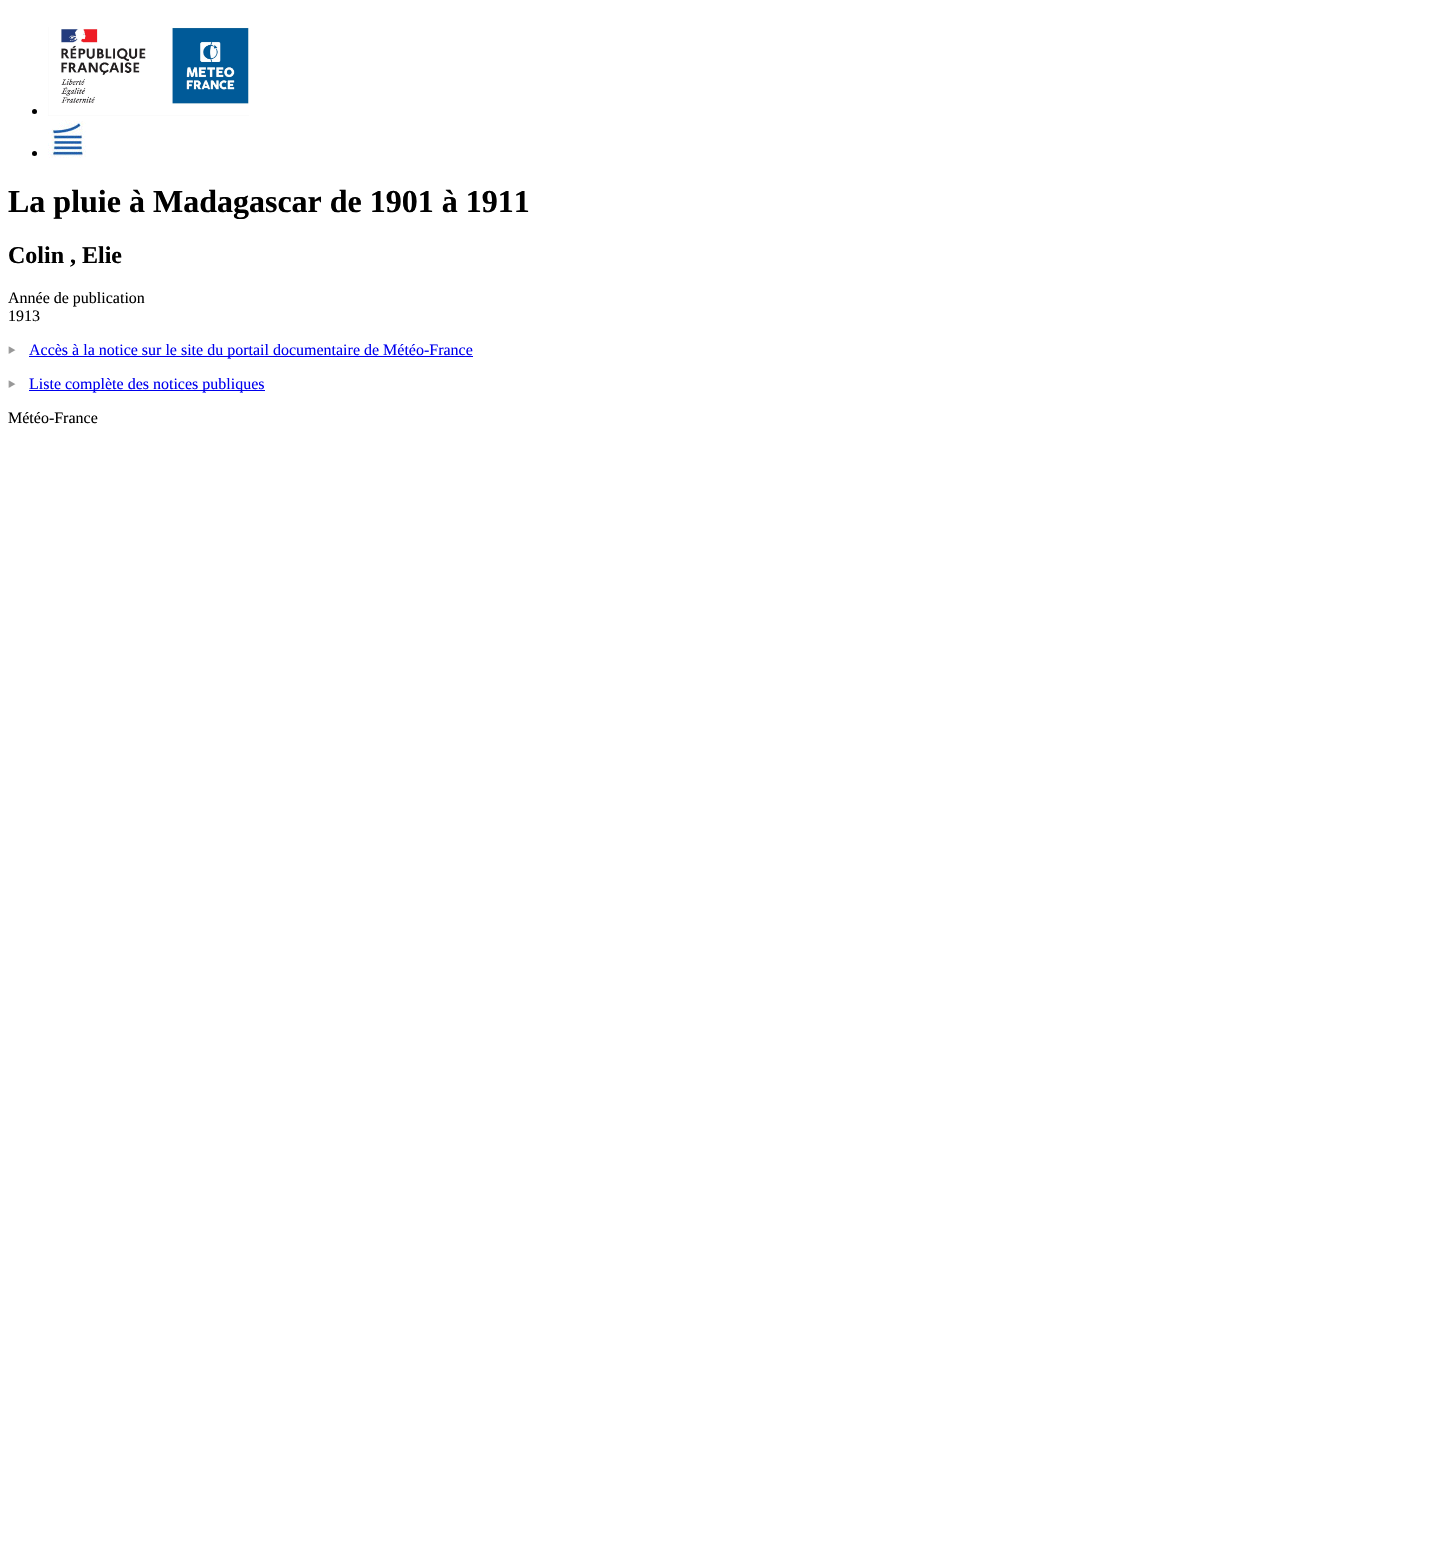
void draw(SkCanvas* c) {
SkPaint p;
p.setAntiAlias(true);
auto F=[&](const char* family, int weight, float size, bool italic = false){SkFontStyle style(weight, SkFontStyle::kNormal_Width,italic ? SkFontStyle::kItalic_Slant : SkFontStyle::kUpright_Slant);SkFont result(fontMgr->matchFamilyStyle(family, style), size);result.setSubpixel(true);return result;};
auto T=[&](const char* s, float x, float y, const SkFont& font){c->drawString(s, x, y, font, p);};
auto R=[&](float x, float y, float w, float h){c->drawRect(SkRect::MakeXYWH(x, y, w, h), p);};
auto I=[&](const char* path, float x, float y, float w, float h){auto image = SkImages::DeferredFromEncodedData(SkData::MakeFromFileName(path));c->drawImageRect(image, SkRect::MakeXYWH(x, y, w, h), SkSamplingOptions());};
c->clear(0xffffffff);
p.setColor(0xff000000);
c->drawCircle(34.5,111.5,2.5,p);
I("1.png",48,27,201,89);
c->drawCircle(34.5,153.5,2.5,p);
I("2.png",48,120,38,38);
auto f1 = F("Liberation Serif",700,32);
T("La pluie à Madagascar de 1901 à 1911",8,212,f1);
auto f2 = F("Liberation Serif",700,24);
T("Colin , Elie",8,263,f2);
auto f3 = F("Liberation Serif",400,16);
T("Année de publication",8,303,f3);
T("1913",8,321,f3);
I("3.png",8,346,8,8);
p.setColor(0xff0000ee);
R(29,356,444,1);
T("Accès à la notice sur le site du portail documentaire de Météo-France",29,355,f3);
I("3.png",8,380,8,8);
R(29,390,236,1);
T("Liste complète des notices publiques",29,389,f3);
p.setColor(0xff000000);
T("Météo-France",8,423,f3);
}
